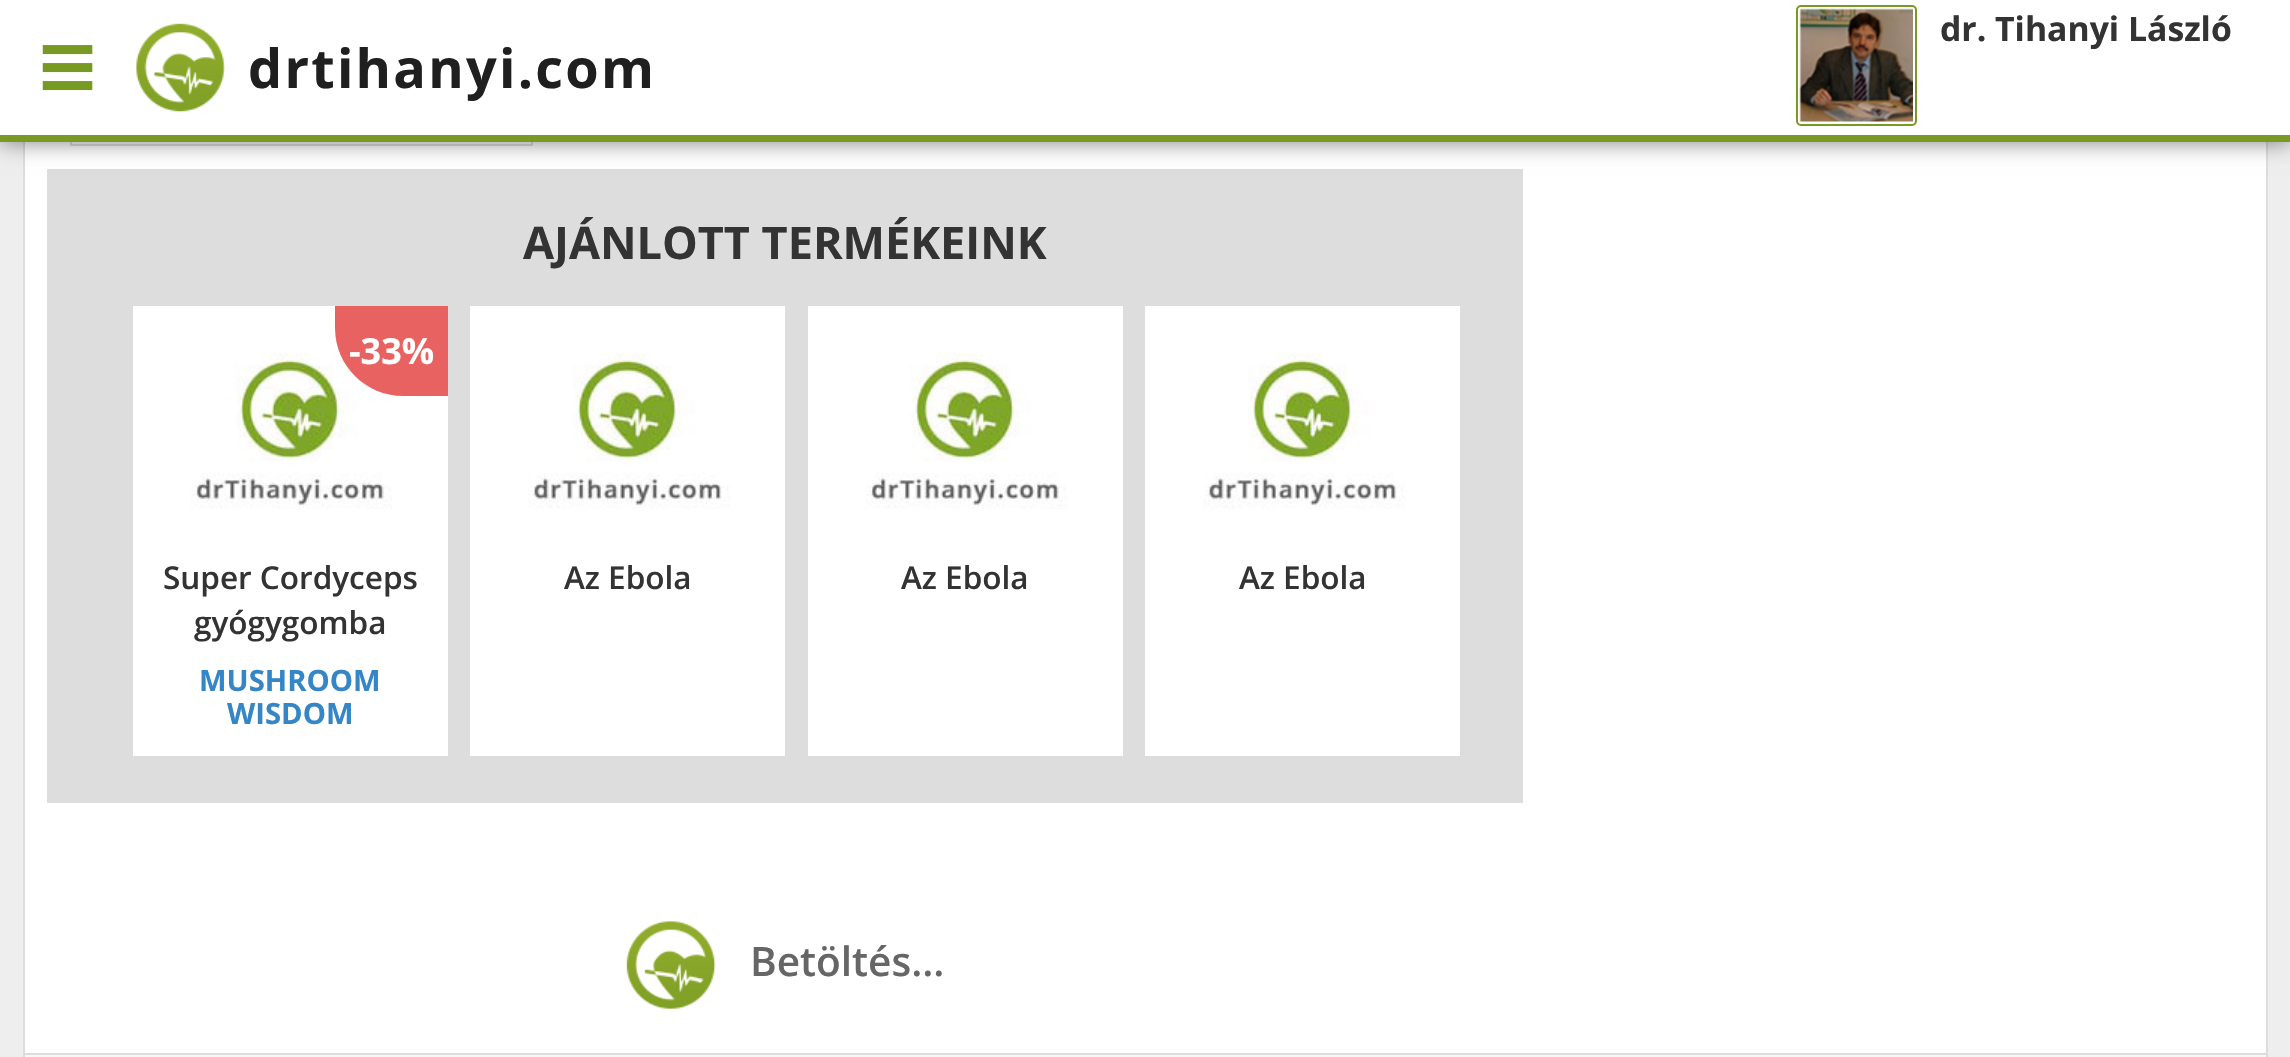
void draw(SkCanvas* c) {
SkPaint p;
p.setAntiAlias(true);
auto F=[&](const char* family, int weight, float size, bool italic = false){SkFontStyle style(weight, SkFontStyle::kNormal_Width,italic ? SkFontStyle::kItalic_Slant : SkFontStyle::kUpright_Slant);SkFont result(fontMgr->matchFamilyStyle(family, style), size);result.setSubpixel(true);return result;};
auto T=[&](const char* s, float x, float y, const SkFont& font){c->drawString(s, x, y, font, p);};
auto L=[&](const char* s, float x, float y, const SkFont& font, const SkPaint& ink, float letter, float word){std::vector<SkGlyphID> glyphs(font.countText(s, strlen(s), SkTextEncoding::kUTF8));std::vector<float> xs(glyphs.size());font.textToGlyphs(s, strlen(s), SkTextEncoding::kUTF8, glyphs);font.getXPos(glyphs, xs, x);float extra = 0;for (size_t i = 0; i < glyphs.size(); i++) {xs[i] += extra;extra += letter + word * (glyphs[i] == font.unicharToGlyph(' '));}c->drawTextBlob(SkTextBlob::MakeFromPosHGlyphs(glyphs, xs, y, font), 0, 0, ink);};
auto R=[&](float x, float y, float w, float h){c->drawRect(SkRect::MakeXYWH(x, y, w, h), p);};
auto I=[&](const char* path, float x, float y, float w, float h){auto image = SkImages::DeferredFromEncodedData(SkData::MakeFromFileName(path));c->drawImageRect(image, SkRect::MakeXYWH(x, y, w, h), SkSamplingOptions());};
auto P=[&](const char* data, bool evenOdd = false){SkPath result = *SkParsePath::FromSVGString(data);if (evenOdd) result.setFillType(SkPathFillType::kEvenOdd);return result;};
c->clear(0xffeeeeee);
p.setColor(0xffffffff);
R(25,142,2241,911);
p.setColor(0xffdddddd);
R(2266,142,2,911);
R(23,142,2,911);
p.setStroke(true);
p.setStrokeWidth(2);
c->drawRect(SkRect::MakeXYWH(71,-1,461,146),p);
p.setStroke(false);
R(47,169,1476,634);
p.setColor(0x80000000);
p.setMaskFilter(SkMaskFilter::MakeBlur(kNormal_SkBlurStyle, 11));
c->drawRect(SkRect::MakeXYWH(0,0,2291,142),p);
p.setMaskFilter(nullptr);
p.setColor(0xffffffff);
R(0,0,2290,135);
p.setColor(0xff769a22);
R(0,135,2290,7);
p.setStroke(true);
c->drawRoundRect(SkRect::MakeXYWH(1797,6,119,119),4,4,p);
I("1.png",1799,8,114,114);
auto f1 = F("Open Sans",700,33.75);
p.setStroke(false);
p.setColor(0xff333333);
T("dr. Tihanyi László",1940,41,f1);
I("2.png",42,45,51,46);
I("3.png",136,23,89,89);
auto f2 = F("Open Sans",700,54);
p.setColor(0xff1f1f1f);
L("drtihanyi.com",248,88,f2,p,2.25,0);
auto f3 = F("Open Sans",700,45);
p.setColor(0xff333333);
T("AJÁNLOTT TERMÉKEINK",523,259,f3);
p.setColor(0xffffffff);
R(133,306,315,450);
I("4.png",190,352,202,157);
p.setColor(0xffe96262);
c->drawPath(P("M335 306h113v90h-45c-37.5 0-68-30.5-68-68z"),p);
auto f4 = F("Open Sans",700,36);
p.setColor(0xffffffff);
T("-33%",349,364,f4);
auto f5 = F("Open Sans",600,31.5);
p.setColor(0xff333333);
T("Super Cordyceps",163,589,f5);
T("gyógygomba",194,634,f5);
auto f6 = F("Open Sans",700,29.25);
p.setColor(0xff3486c6);
T("MUSHROOM",199,691,f6);
T("WISDOM",227,724,f6);
p.setColor(0xffffffff);
R(470,306,315,450);
I("5.png",528,352,203,157);
p.setColor(0xff333333);
T("Az Ebola",564,589,f5);
p.setColor(0xffffffff);
R(808,306,315,450);
I("4.png",865,352,202,157);
p.setColor(0xff333333);
T("Az Ebola",901,589,f5);
p.setColor(0xffffffff);
R(1145,306,315,450);
I("6.png",1203,352,203,157);
p.setColor(0xff333333);
T("Az Ebola",1239,589,f5);
I("7.png",626,921,90,88);
auto f7 = F("Open Sans",600,40.5);
p.setColor(0xff666666);
T("Betöltés...",750,976,f7);
p.setColor(0xfff8f8f8);
c->drawRect(SkRect::MakeXYWH(24,1054,2243,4),p);
p.setStroke(true);
p.setColor(0xffdddddd);
c->drawRect(SkRect::MakeXYWH(24,1054,2243,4),p);
}
